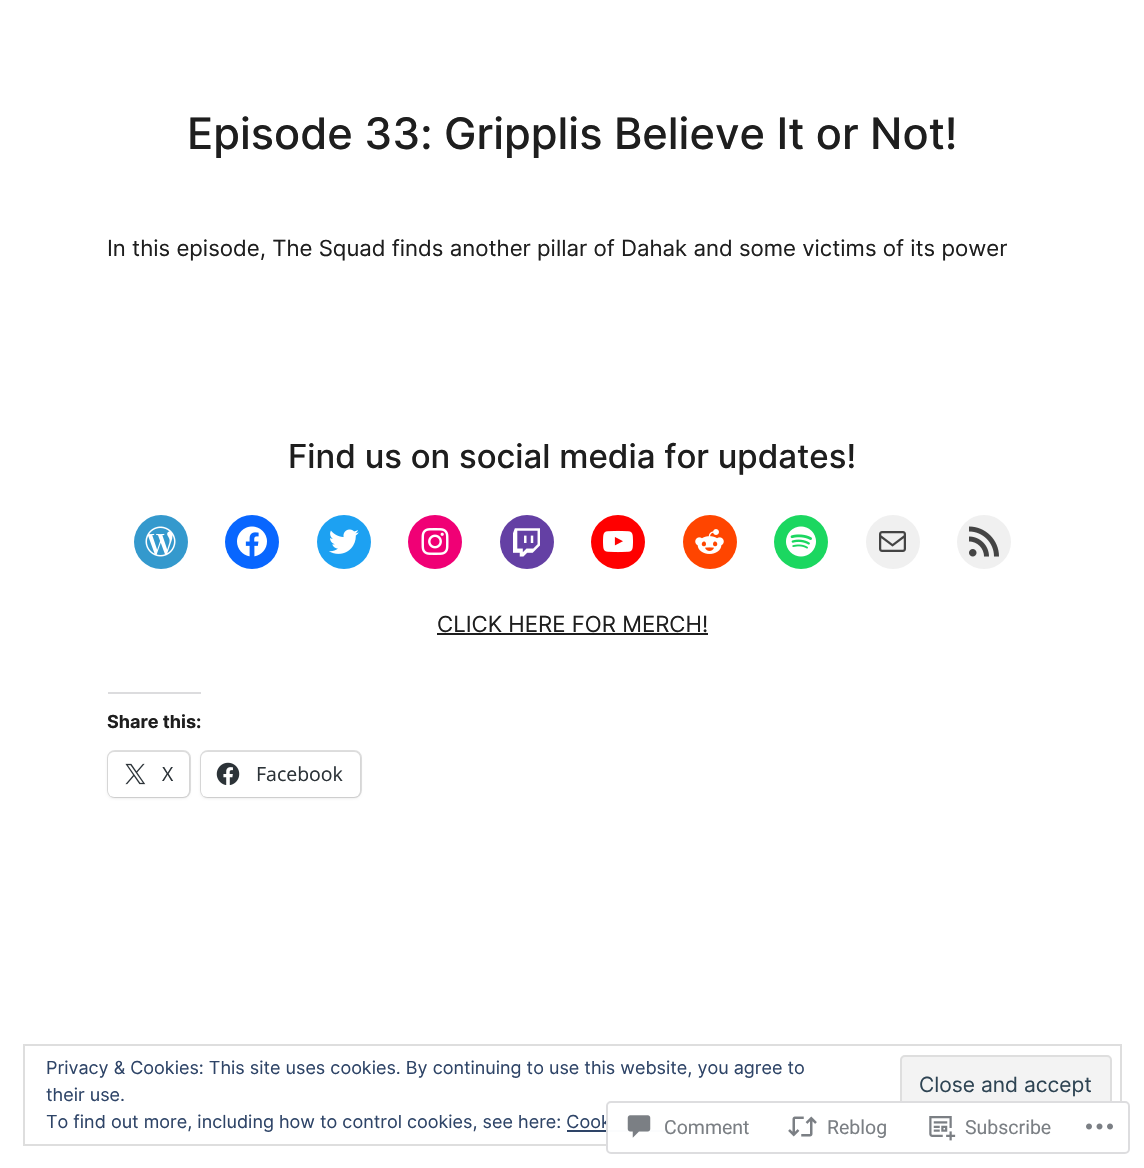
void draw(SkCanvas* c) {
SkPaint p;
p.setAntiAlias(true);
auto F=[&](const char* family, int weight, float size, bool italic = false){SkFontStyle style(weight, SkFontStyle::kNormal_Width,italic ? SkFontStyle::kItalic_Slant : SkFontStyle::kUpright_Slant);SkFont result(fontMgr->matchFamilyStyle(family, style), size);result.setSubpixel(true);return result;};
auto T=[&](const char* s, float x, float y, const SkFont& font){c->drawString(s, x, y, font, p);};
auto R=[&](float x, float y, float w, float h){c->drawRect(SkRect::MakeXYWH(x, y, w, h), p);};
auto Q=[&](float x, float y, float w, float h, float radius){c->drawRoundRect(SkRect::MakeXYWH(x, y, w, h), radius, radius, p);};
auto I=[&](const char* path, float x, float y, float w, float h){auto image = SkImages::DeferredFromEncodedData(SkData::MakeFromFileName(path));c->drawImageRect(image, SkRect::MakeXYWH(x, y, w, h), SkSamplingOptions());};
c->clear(0xffffffff);
auto f1 = F("Inter",500,43.4);
p.setColor(0xff1e1e1e);
T("Episode 33: Gripplis Believe It or Not!",187,149,f1);
auto f2 = F("Inter",400,22.2);
T("In this episode, The Squad finds another pillar of Dahak and some victims of its power",107,256,f2);
auto f3 = F("Inter",500,33);
T("Find us on social media for updates!",288,468,f3);
p.setColor(0xff3499cd);
c->drawCircle(161,542,27,p);
I("1.png",145,526,31,31);
p.setColor(0xff0866ff);
c->drawCircle(252,542,27,p);
I("2.png",237,526,30,31);
p.setColor(0xff1da1f2);
c->drawCircle(344,542,27,p);
I("3.png",329,529,30,25);
p.setColor(0xfff00075);
c->drawCircle(435,542,27,p);
I("4.png",421,528,28,27);
p.setColor(0xff6440a4);
c->drawCircle(527,542,27,p);
I("5.png",513,528,27,29);
p.setColor(0xffff0000);
c->drawCircle(618,542,27,p);
I("6.png",603,530,30,23);
p.setColor(0xffff4500);
c->drawCircle(710,542,27,p);
I("7.png",695,529,29,25);
p.setColor(0xff1bd760);
c->drawCircle(801,542,27,p);
I("8.png",786,526,30,31);
p.setColor(0xfff0f0f0);
c->drawCircle(893,542,27,p);
I("9.png",879,531,27,21);
c->drawCircle(984,542,27,p);
I("10.png",969,526,30,31);
p.setColor(0xff1e1e1e);
T("CLICK HERE FOR MERCH!",437,632,f2);
R(437,633,271,2);
p.setColor(0xffdcdcde);
R(108,692,93,2);
auto f4 = F("Inter",700,18);
p.setColor(0xff1e1e1e);
T("Share this:",107,728,f4);
p.setStroke(true);
p.setStrokeWidth(2);
p.setColor(0xffe0e0e0);
c->drawRoundRect(SkRect::MakeXYWH(108,751,82,46),7,7,p);
p.setStroke(false);
p.setColor(0x1f000000);
p.setMaskFilter(SkMaskFilter::MakeBlur(kNormal_SkBlurStyle, 1.5));
c->drawRoundRect(SkRect::MakeXYWH(108,753,81,45),6,6,p);
p.setMaskFilter(nullptr);
p.setColor(0xffffffff);
Q(108,752,81,45,6);
I("11.png",125,763,21,22);
auto f5 = F("Open Sans",400,19.5);
p.setColor(0xff2c3338);
T("X",162,781,f5);
p.setStroke(true);
p.setColor(0xffe0e0e0);
c->drawRoundRect(SkRect::MakeXYWH(201,751,160,46),7,7,p);
p.setStroke(false);
p.setColor(0x1f000000);
p.setMaskFilter(SkMaskFilter::MakeBlur(kNormal_SkBlurStyle, 1.5));
c->drawRoundRect(SkRect::MakeXYWH(201,753,159,45),6,6,p);
p.setMaskFilter(nullptr);
p.setColor(0xffffffff);
Q(201,752,159,45,6);
I("12.png",216,762,24,23);
p.setColor(0xff2c3338);
T("Facebook",256,781,f5);
p.setStroke(true);
p.setColor(0xffdedede);
c->drawRect(SkRect::MakeXYWH(24,1045,1097,100),p);
auto f6 = F("Inter",400,18);
p.setStroke(false);
p.setColor(0xff2e4467);
T("Privacy & Cookies: This site uses cookies. By continuing to use this website, you agree to",46,1074,f6);
T("their use.",46,1101,f6);
p.setColor(0xfff3f3f3);
c->drawRoundRect(SkRect::MakeXYWH(901,1056,210,56),4,4,p);
p.setStroke(true);
p.setColor(0xffdedede);
c->drawRoundRect(SkRect::MakeXYWH(901,1056,210,56),4,4,p);
auto f7 = F("Inter",400,21);
p.setStroke(false);
p.setColor(0xff2e4453);
T("Close and accept",919,1092,f7);
p.setColor(0xff2e4467);
T("To find out more, including how to control cookies, see here: Cook",46,1128,f6);
R(567,1130,114,2);
p.setColor(0xfaffffff);
Q(606,1101,524,53,5);
p.setStroke(true);
p.setColor(0xfadcdcde);
c->drawRoundRect(SkRect::MakeXYWH(607,1102,522,51),4,4,p);
I("13.png",627,1115,24,23);
auto f8 = F("Roboto",400,19.5);
p.setStroke(false);
p.setColor(0xff7b7f84);
T("Comment",664,1134,f8);
I("14.png",788,1116,29,21);
T("Reblog",827,1134,f8);
I("15.png",929,1116,27,25);
T("Subscribe",965,1134,f8);
I("16.png",1086,1123,27,7);
}
